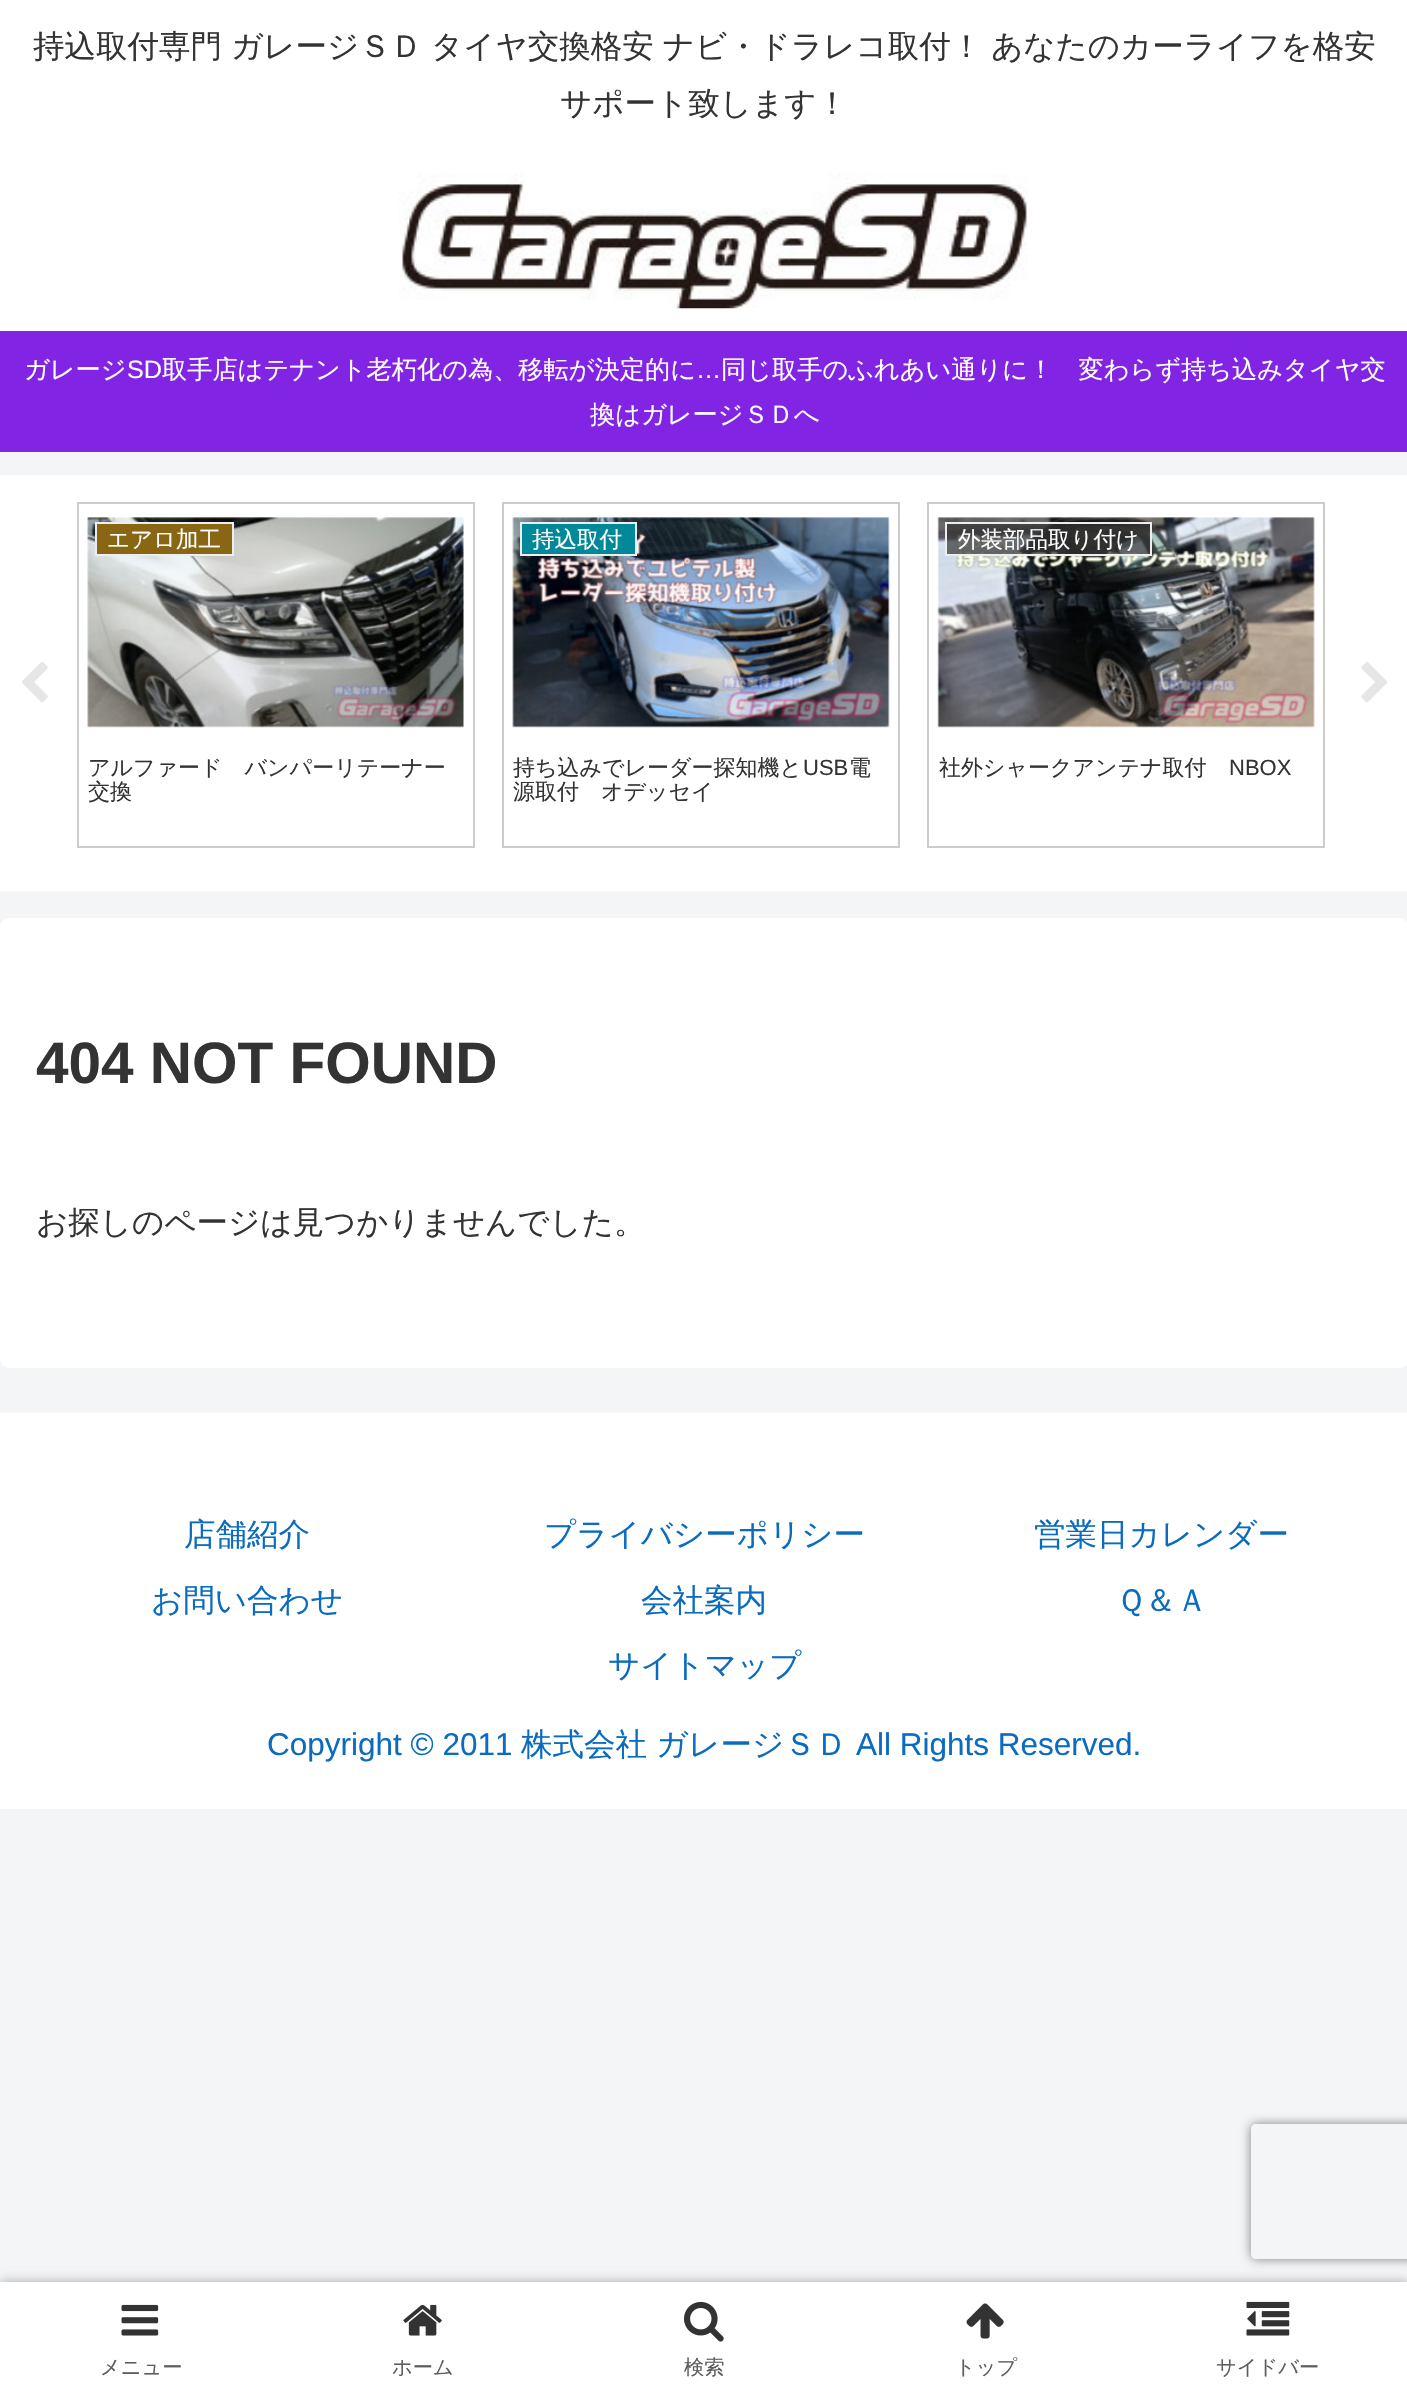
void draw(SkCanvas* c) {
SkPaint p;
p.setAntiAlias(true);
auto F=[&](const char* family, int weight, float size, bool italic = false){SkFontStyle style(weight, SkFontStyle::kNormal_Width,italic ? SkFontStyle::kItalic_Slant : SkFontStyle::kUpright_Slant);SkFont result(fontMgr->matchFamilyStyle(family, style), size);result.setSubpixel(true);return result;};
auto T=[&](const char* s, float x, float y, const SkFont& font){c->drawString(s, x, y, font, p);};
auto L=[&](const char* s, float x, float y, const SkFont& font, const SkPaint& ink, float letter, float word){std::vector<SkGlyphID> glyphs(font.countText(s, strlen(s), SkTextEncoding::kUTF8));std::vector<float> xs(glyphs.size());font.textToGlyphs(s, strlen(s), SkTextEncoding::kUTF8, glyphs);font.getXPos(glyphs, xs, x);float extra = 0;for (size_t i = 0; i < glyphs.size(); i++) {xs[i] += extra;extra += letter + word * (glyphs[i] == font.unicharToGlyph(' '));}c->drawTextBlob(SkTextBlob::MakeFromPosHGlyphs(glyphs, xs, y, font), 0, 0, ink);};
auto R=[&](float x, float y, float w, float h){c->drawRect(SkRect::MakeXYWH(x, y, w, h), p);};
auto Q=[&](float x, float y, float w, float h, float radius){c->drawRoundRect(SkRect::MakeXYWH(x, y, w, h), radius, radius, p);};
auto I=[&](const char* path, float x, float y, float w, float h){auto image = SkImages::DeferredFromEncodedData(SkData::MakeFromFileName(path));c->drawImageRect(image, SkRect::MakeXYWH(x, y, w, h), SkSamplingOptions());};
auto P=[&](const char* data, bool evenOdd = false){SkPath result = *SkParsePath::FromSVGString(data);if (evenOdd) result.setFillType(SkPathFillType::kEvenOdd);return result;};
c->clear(0xfff4f5f7);
p.setColor(0xffffffff);
R(0,0,1407,331);
auto f1 = F("WenQuanYi Zen Hei",500,31.5);
p.setColor(0xff333333);
L("持込取付専門 ガレージＳＤ タイヤ交換格安 ナビ・ドラレコ取付！ あなたのカーライフを格安",33,57,f1,p,0,-.5);
T("サポート致します！",560,114,f1);
I("1.png",399,173,629,136);
p.setColor(0xff8224e3);
R(0,331,1407,121);
auto f2 = F("WenQuanYi Zen Hei",500,25.2);
p.setColor(0xffffffff);
T("ガレージ",24,378,f2);
auto f3 = F("Liberation Sans",400,25.2);
T("SD",127,378,f3);
T("取手店はテナント老朽化の為、移転が決定的に",162,378,f2);
T("…",696,378,f3);
T("同じ取手のふれあい通りに！　変わらず持ち込みタイヤ交",721,378,f2);
T("換はガレージＳＤへ",590,423,f2);
R(0,475,1407,416);
I("2.png",22,662,26,41);
p.setStroke(true);
p.setStrokeWidth(2);
p.setColor(0xffcccccc);
c->drawRect(SkRect::MakeXYWH(78,503,396,344),p);
I("3.png",87,517,377,211);
p.setStroke(false);
p.setColor(0xff896614);
c->drawRect(SkRect::MakeXYWH(96,523,137,32),p);
p.setStroke(true);
p.setColor(0xffeeeeee);
c->drawRect(SkRect::MakeXYWH(96,523,137,32),p);
auto f4 = F("WenQuanYi Zen Hei",500,22.5);
p.setStroke(false);
p.setColor(0xffffffff);
T("エアロ加工",107,547,f4);
auto f5 = F("WenQuanYi Zen Hei",500,22);
p.setColor(0xff333333);
T("アルファード　バンパーリテーナー",88,775,f5);
T("交換",88,799,f5);
p.setStroke(true);
p.setColor(0xffcccccc);
c->drawRect(SkRect::MakeXYWH(503,503,396,344),p);
I("4.png",512,517,378,211);
p.setStroke(false);
p.setColor(0xff018999);
c->drawRect(SkRect::MakeXYWH(521,523,115,32),p);
p.setStroke(true);
p.setColor(0xffeeeeee);
c->drawRect(SkRect::MakeXYWH(521,523,115,32),p);
p.setStroke(false);
p.setColor(0xffffffff);
T("持込取付",532,547,f4);
p.setColor(0xff333333);
T("持ち込みでレーダー探知機と",513,775,f5);
auto f6 = F("Liberation Sans",400,22);
T("USB",803,775,f6);
T("電",849,775,f5);
T("源取付　オデッセイ",513,799,f5);
p.setStroke(true);
p.setColor(0xffcccccc);
c->drawRect(SkRect::MakeXYWH(928,503,396,344),p);
I("5.png",937,517,378,211);
p.setStroke(false);
p.setColor(0xb3333333);
c->drawRect(SkRect::MakeXYWH(946,523,205,32),p);
p.setStroke(true);
p.setColor(0xffeeeeee);
c->drawRect(SkRect::MakeXYWH(946,523,205,32),p);
p.setStroke(false);
p.setColor(0xffffffff);
T("外装部品取り付け",958,547,f4);
p.setColor(0xff333333);
T("社外シャークアンテナ取付",939,775,f5);
T("NBOX",1229,775,f6);
I("6.png",1361,662,27,41);
p.setColor(0xffffffff);
Q(0,918,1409,450,9);
auto f7 = F("Liberation Sans",700,58.5);
p.setColor(0xff333333);
T("404 NOT FOUND",36,1083,f7);
T("お探しのページは見つかりませんでした。",36,1233,f1);
p.setColor(0xffffffff);
R(0,1413,1407,396);
p.setColor(0xff0b6bbf);
T("店舗紹介",184,1545,f1);
T("プライバシーポリシー",544,1545,f1);
T("営業日カレンダー",1034,1545,f1);
T("お問い合わせ",151,1611,f1);
T("会社案内",641,1611,f1);
T("Ｑ＆Ａ",1116,1611,f1);
T("サイトマップ",608,1676,f1);
auto f8 = F("Liberation Sans",400,31.5);
T("Copyright © 2011",267,1755,f8);
T("株式会社",521,1755,f1);
T("ガレージＳＤ",656,1755,f1);
T("All Rights Reserved.",856,1755,f8);
p.setColor(0xffa9a9a9);
p.setMaskFilter(SkMaskFilter::MakeBlur(kNormal_SkBlurStyle, 5.5));
c->drawRect(SkRect::MakeXYWH(0,2282,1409,112),p);
p.setMaskFilter(nullptr);
p.setColor(0xffffffff);
R(0,2282,1407,112);
I("7.png",121,2304,38,32);
auto f9 = F("WenQuanYi Zen Hei",500,20.25);
p.setColor(0xff5c5c5c);
T("メニュー",100,2374,f9);
I("8.png",403,2304,39,32);
T("ホーム",392,2374,f9);
I("9.png",684,2301,40,41);
T("検索",684,2374,f9);
I("10.png",966,2303,38,36);
T("トップ",955,2374,f9);
I("11.png",1246,2301,44,35);
T("サイドバー",1216,2374,f9);
c->save();
c->clipPath(P("M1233 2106h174v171h-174zm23 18h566c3 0 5 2 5 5v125c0 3-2 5-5 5h-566c-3 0-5-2-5-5v-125c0-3 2-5 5-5z",true),true);
p.setColor(0xff808080);
p.setMaskFilter(SkMaskFilter::MakeBlur(kNormal_SkBlurStyle, 5.5));
c->drawRoundRect(SkRect::MakeXYWH(1251,2124,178,135),5,5,p);
p.setMaskFilter(nullptr);
c->restore();
}
